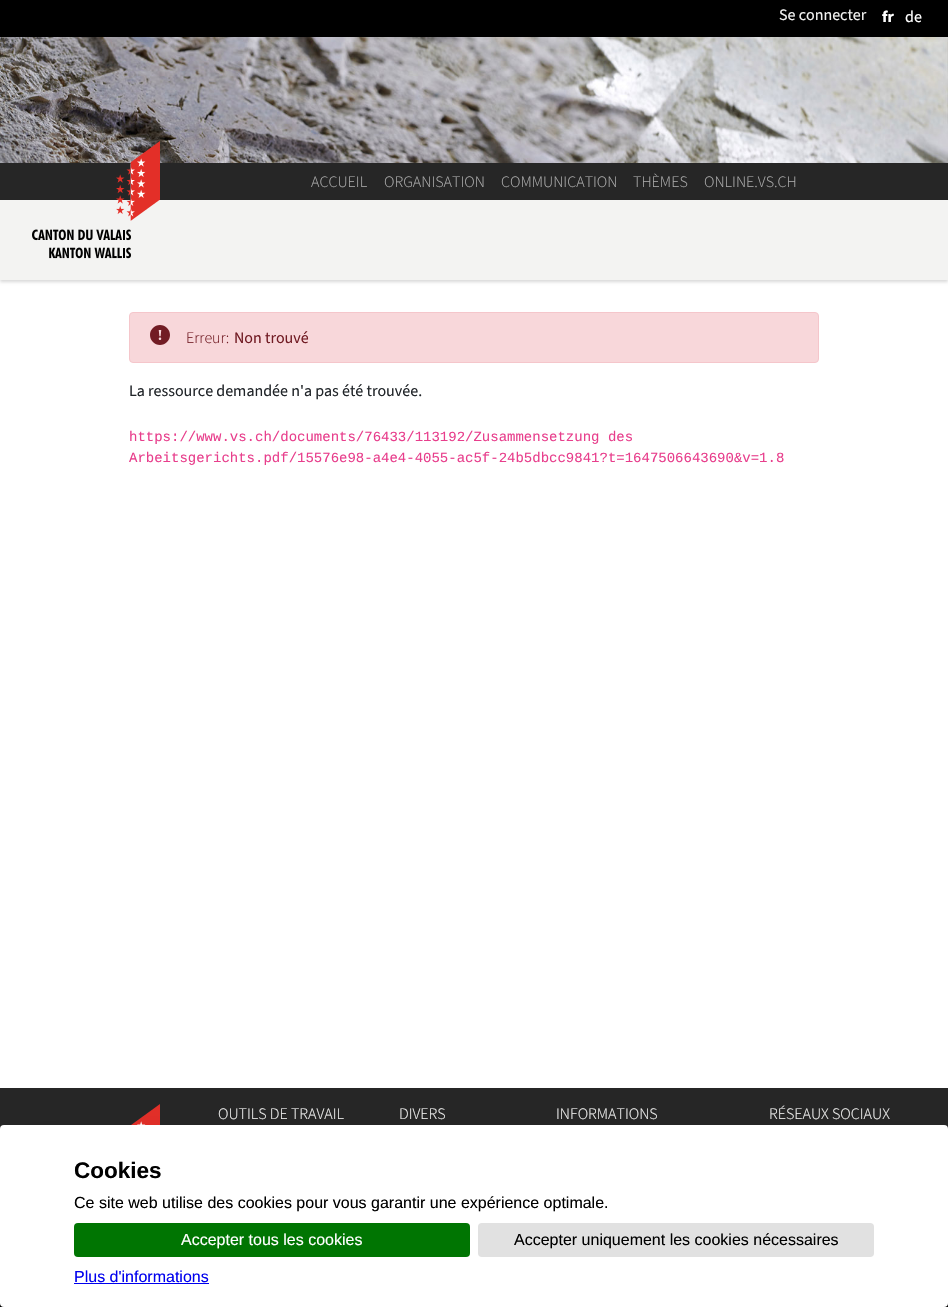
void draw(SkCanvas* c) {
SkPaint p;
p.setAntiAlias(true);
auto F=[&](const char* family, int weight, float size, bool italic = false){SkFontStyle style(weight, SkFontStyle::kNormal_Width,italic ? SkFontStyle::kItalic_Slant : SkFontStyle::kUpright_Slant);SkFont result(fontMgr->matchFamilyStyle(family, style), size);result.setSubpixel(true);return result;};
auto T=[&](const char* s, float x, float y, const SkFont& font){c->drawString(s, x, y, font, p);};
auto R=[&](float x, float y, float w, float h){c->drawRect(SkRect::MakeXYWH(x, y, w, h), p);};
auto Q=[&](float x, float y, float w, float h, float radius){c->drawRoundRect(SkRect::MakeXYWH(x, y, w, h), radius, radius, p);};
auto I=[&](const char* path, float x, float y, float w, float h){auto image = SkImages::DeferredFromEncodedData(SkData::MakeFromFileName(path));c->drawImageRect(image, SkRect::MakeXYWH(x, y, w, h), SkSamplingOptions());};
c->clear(0xffffffff);
p.setColor(0xff000000);
R(0,0,948,37);
auto f1 = F("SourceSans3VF",400,16);
p.setColor(0xfff3f3f2);
T("Se connecter",779,20,f1);
auto f2 = F("SourceSans3VF",700,16);
p.setColor(0xffffffff);
T("fr",882,22,f2);
T("de",905,22,f1);
I("1.png",0,37,948,126);
p.setColor(0xff262626);
R(0,163,948,37);
p.setColor(0x26000000);
p.setMaskFilter(SkMaskFilter::MakeBlur(kNormal_SkBlurStyle, 1.5));
c->drawRect(SkRect::MakeXYWH(0,202,948,80),p);
p.setMaskFilter(nullptr);
p.setColor(0xfff3f3f2);
R(0,200,948,80);
I("2.png",32,141,128,118);
auto f3 = F("SourceSans3VF",300,16);
p.setColor(0xffaaaaaa);
T("ACCUEIL",311,187,f3);
T("ORGANISATION",384,187,f3);
T("COMMUNICATION",501,187,f3);
T("THÈMES",633,187,f3);
T("ONLINE.VS.CH",704,187,f3);
p.setColor(0xfff8d7da);
c->drawRoundRect(SkRect::MakeXYWH(129.5,312.5,689,50),3.5,3.5,p);
p.setStroke(true);
p.setStrokeWidth(1);
p.setColor(0xfff5c6cb);
c->drawRoundRect(SkRect::MakeXYWH(129.5,312.5,689,50),3.5,3.5,p);
I("3.png",150,325,20,20);
p.setStroke(false);
p.setColor(0xff721c24);
T("Erreur:",186,343,f3);
T("Non trouvé",234,343,f1);
p.setColor(0xff212529);
T("La ressource demandée n'a pas été trouvée.",129,396,f1);
auto f4 = F("Liberation Mono",400,14);
p.setColor(0xffe83e8c);
T("https://www.vs.ch/documents/76433/113192/Zusammensetzung des",129,441,f4);
T("Arbeitsgerichts.pdf/15576e98-a4e4-4055-ac5f-24b5dbcc9841?t=1647506643690&v=1.8",129,462,f4);
p.setColor(0xff262626);
R(0,1088,948,41);
I("4.png",131,1104,29,21);
p.setColor(0xfff3f3f2);
T("OUTILS DE TRAVAIL",218,1119,f3);
T("DIVERS",399,1119,f3);
T("INFORMATIONS",556,1119,f3);
T("RÉSEAUX SOCIAUX",769,1119,f3);
p.setColor(0xff000000);
R(0,1303,948,4);
p.setColor(0x40000000);
p.setMaskFilter(SkMaskFilter::MakeBlur(kNormal_SkBlurStyle, 25));
c->drawRect(SkRect::MakeXYWH(12,1162,924,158),p);
p.setMaskFilter(nullptr);
p.setColor(0xffffffff);
Q(0,1125,948,182,4);
auto f5 = F("Liberation Sans",700,22.5);
p.setColor(0xff000000);
T("Cookies",74,1178,f5);
auto f6 = F("Liberation Sans",400,16);
T("Ce site web utilise des cookies pour vous garantir une expérience optimale.",74,1208,f6);
p.setColor(0xff007502);
Q(74,1223,396,34,4);
p.setColor(0xffffffff);
T("Accepter tous les cookies",181,1245,f6);
p.setColor(0xffe1e1e1);
Q(478,1223,396,34,4);
p.setColor(0xff000000);
T("Accepter uniquement les cookies nécessaires",514,1245,f6);
p.setColor(0xff0000ee);
T("Plus d'informations",74,1282,f6);
R(74,1283,135,1);
}
